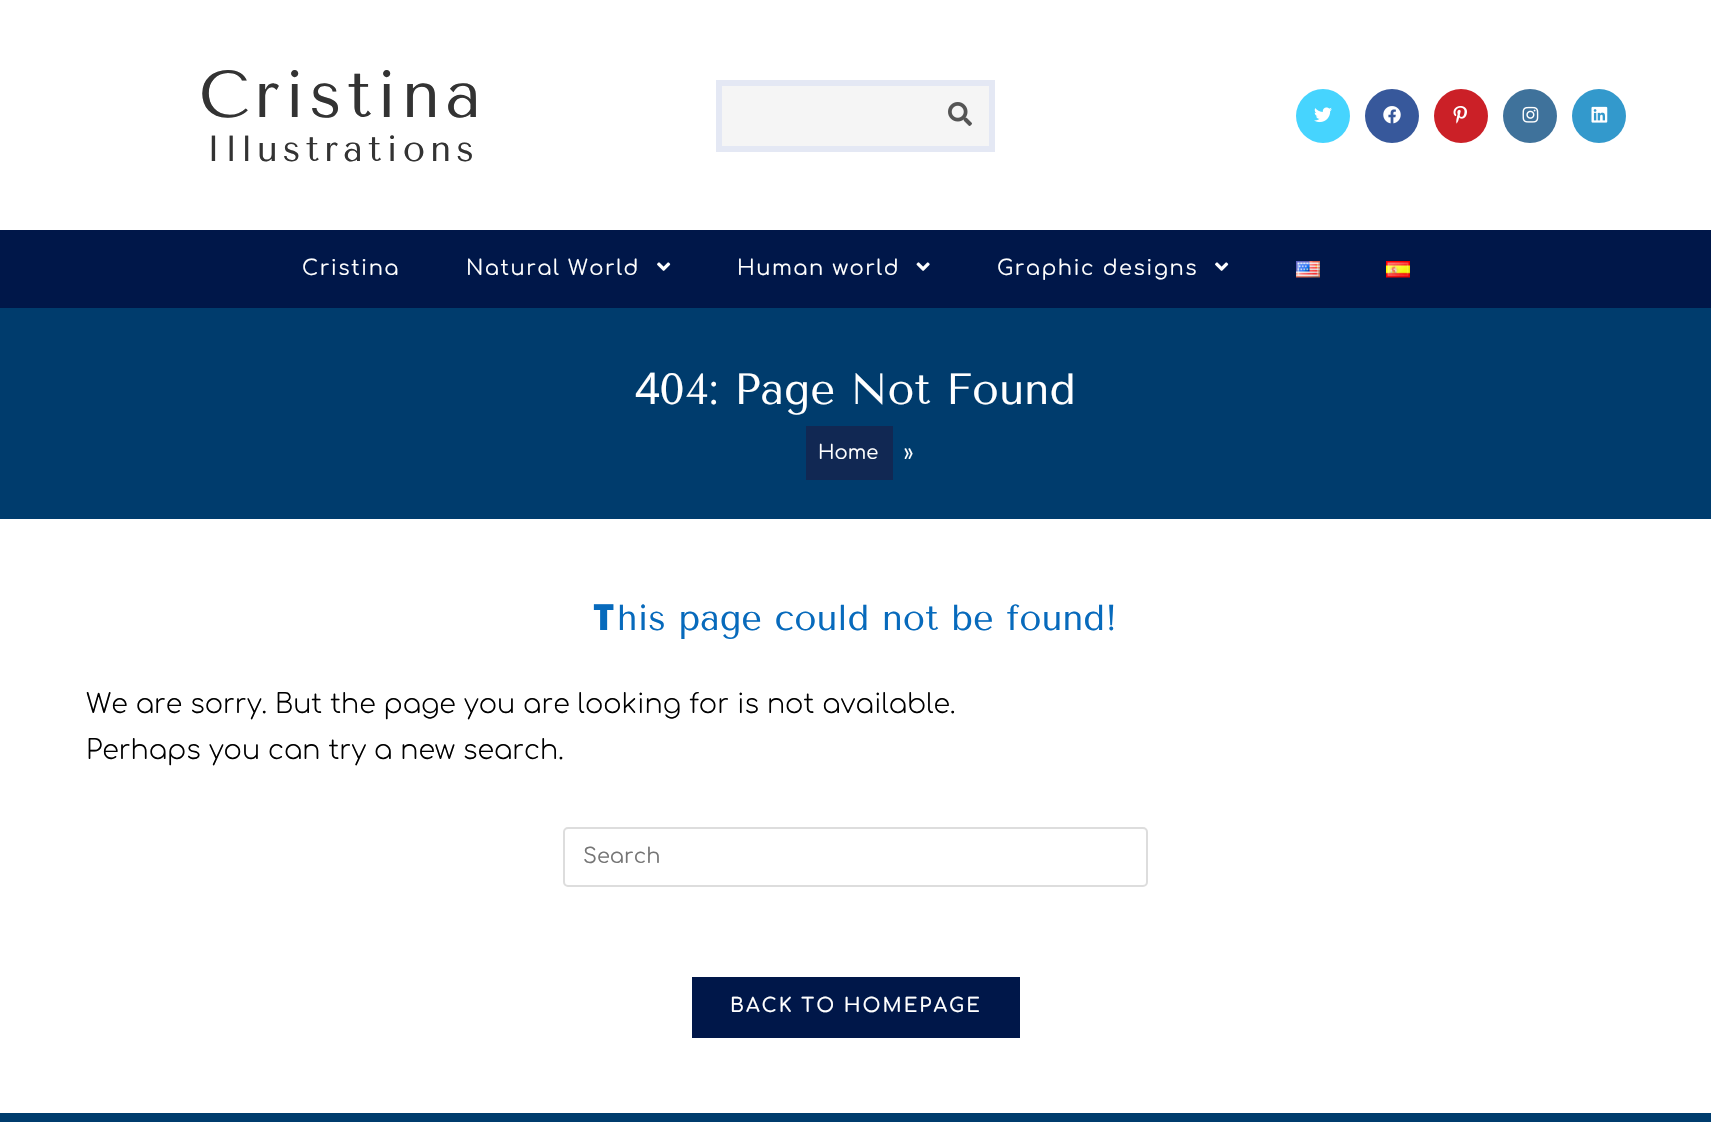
void draw(SkCanvas* c) {
SkPaint p;
p.setAntiAlias(true);
auto F=[&](const char* family, int weight, float size, bool italic = false){SkFontStyle style(weight, SkFontStyle::kNormal_Width,italic ? SkFontStyle::kItalic_Slant : SkFontStyle::kUpright_Slant);SkFont result(fontMgr->matchFamilyStyle(family, style), size);result.setSubpixel(true);return result;};
auto T=[&](const char* s, float x, float y, const SkFont& font){c->drawString(s, x, y, font, p);};
auto L=[&](const char* s, float x, float y, const SkFont& font, const SkPaint& ink, float letter, float word){std::vector<SkGlyphID> glyphs(font.countText(s, strlen(s), SkTextEncoding::kUTF8));std::vector<float> xs(glyphs.size());font.textToGlyphs(s, strlen(s), SkTextEncoding::kUTF8, glyphs);font.getXPos(glyphs, xs, x);float extra = 0;for (size_t i = 0; i < glyphs.size(); i++) {xs[i] += extra;extra += letter + word * (glyphs[i] == font.unicharToGlyph(' '));}c->drawTextBlob(SkTextBlob::MakeFromPosHGlyphs(glyphs, xs, y, font), 0, 0, ink);};
auto R=[&](float x, float y, float w, float h){c->drawRect(SkRect::MakeXYWH(x, y, w, h), p);};
auto I=[&](const char* path, float x, float y, float w, float h){auto image = SkImages::DeferredFromEncodedData(SkData::MakeFromFileName(path));c->drawImageRect(image, SkRect::MakeXYWH(x, y, w, h), SkSamplingOptions());};
c->clear(0xffffffff);
auto f1 = F("Tenor Sans",400,66);
p.setColor(0xff333333);
L("Cristina",199,117,f1,p,5.1,0);
auto f2 = F("Tenor Sans",400,36.25);
L("Illustrations",206,161,f2,p,5.1,0);
p.setStroke(true);
p.setStrokeWidth(6);
p.setColor(0xffe4e8f4);
c->drawRect(SkRect::MakeXYWH(719,83,273,66),p);
p.setStroke(false);
p.setColor(0xfff5f5f5);
R(722,86,267,60);
I("1.png",948,102,24,24);
p.setColor(0xff46d4fe);
c->drawCircle(1323,116,27,p);
I("2.png",1314,107,18,16);
p.setColor(0xff37589b);
c->drawCircle(1392,116,27,p);
I("3.png",1383,106,18,18);
p.setColor(0xffcb2027);
c->drawCircle(1461,116,27,p);
I("4.png",1453,106,14,18);
p.setColor(0xff3f729b);
c->drawCircle(1530,116,27,p);
I("5.png",1522,106,17,17);
p.setColor(0xff3399cc);
c->drawCircle(1599,116,27,p);
I("6.png",1591,106,17,17);
p.setColor(0xff001749);
R(0,230,1711,78);
auto f3 = F("Comfortaa",400,21);
p.setColor(0xffffffff);
L("Cristina",302,275,f3,p,1.5,0);
L("Natural World",466,275,f3,p,1.5,0);
I("7.png",657,262,14,9);
L("Human world",737,275,f3,p,1.5,0);
I("8.png",916,262,14,9);
L("Graphic designs",997,275,f3,p,1.5,0);
I("7.png",1215,262,14,9);
I("9.png",1296,261,24,17);
I("10.png",1386,261,24,17);
p.setColor(0xff003c6d);
R(0,308,1711,211);
auto f4 = F("Noto Sans",400,43.5);
p.setColor(0xffffffff);
T("4",635,404,f4);
auto f5 = F("Tenor Sans",400,43.5);
T("04: Page Not Found",659,404,f5);
p.setColor(0xff112853);
R(806,426,87,54);
auto f6 = F("Comfortaa",400,19.5);
p.setColor(0xffffffff);
T("Home",818,459,f6);
T("»",904,459,f6);
auto f7 = F("Noto Sans",900,36);
p.setColor(0xff076abc);
T("T",593,630,f7);
auto f8 = F("Tenor Sans",400,36);
T("his page could not be found!",617,630,f8);
auto f9 = F("Comfortaa",300,27);
p.setColor(0xff000000);
T("We are sorry. But the page you are looking for is not available.",86,713,f9);
T("Perhaps you can try a new search.",86,759,f9);
p.setStroke(true);
p.setStrokeWidth(2);
p.setColor(0xffdddddd);
c->drawRoundRect(SkRect::MakeXYWH(564,828,583,58),4,4,p);
p.setStroke(false);
p.setColor(0xff757575);
T("Search",583,863,f3);
p.setColor(0xff001749);
R(692,977,328,61);
auto f10 = F("Comfortaa",600,19.5);
p.setColor(0xffffffff);
L("BACK TO HOMEPAGE",730,1012,f10,p,2,0);
p.setColor(0xff003c6d);
R(0,1113,1711,9);
}
